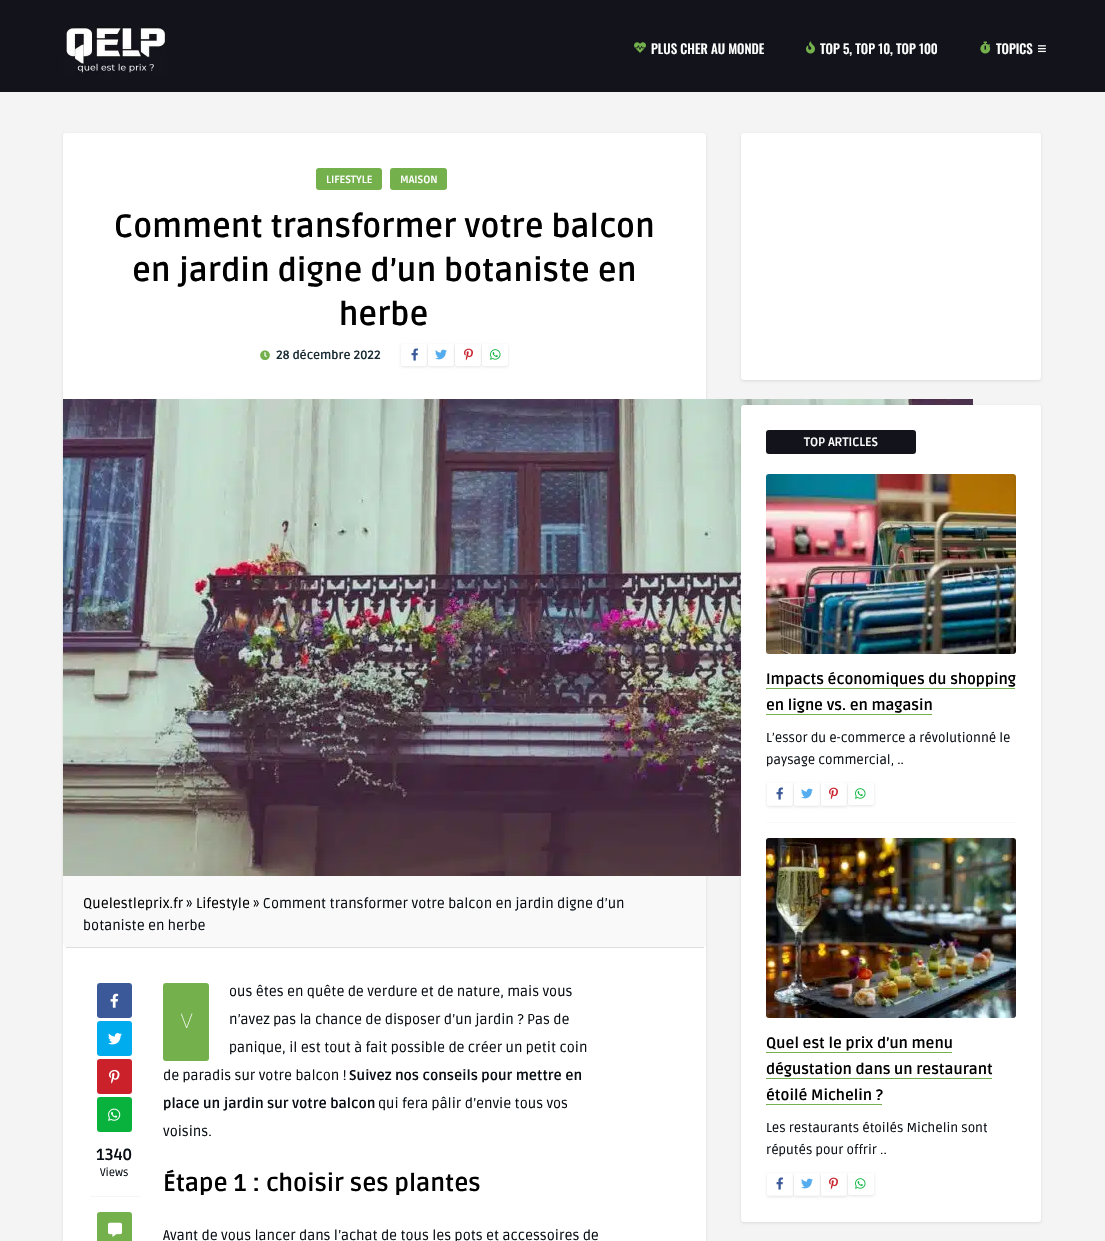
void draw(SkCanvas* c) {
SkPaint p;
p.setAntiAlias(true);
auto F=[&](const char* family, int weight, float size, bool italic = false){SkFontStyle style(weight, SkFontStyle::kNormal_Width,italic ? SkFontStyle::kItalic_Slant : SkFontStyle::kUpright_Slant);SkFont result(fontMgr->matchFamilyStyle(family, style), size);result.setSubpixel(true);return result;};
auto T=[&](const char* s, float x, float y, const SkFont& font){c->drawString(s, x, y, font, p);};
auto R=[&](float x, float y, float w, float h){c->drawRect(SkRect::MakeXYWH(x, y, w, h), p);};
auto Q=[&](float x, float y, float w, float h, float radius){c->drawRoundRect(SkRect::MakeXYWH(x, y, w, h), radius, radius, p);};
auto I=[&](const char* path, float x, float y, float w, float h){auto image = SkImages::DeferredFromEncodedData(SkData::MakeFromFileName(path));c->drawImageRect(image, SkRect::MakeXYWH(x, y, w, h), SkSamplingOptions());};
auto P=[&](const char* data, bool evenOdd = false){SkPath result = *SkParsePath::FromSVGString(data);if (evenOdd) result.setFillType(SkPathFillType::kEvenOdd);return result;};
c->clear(0xfff4f4f4);
p.setColor(0xff13131c);
R(0,0,1105,92);
I("1.png",63,26,104,48);
I("2.png",634,42,12,11);
auto f1 = F("Oswald",500,13);
p.setColor(0xffffffff);
T("PLUS CHER AU MONDE",651,54,f1);
I("3.png",806,41,9,13);
T("TOP 5, TOP 10, TOP 100",820,54,f1);
I("4.png",980,41,11,13);
T("TOPICS",996,54,f1);
I("5.png",1038,45,8,8);
p.setColor(0x1a000000);
p.setMaskFilter(SkMaskFilter::MakeBlur(kNormal_SkBlurStyle, 1.5));
c->drawRoundRect(SkRect::MakeXYWH(63,134,643,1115),3,3,p);
p.setMaskFilter(nullptr);
p.setColor(0xffffffff);
Q(63,133,643,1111,3);
p.setColor(0xff74b04c);
Q(316,168,66,22,3);
auto f2 = F("Ruda",700,10.5);
p.setColor(0xffffffff);
T("LIFESTYLE",326,183,f2);
p.setColor(0xff74b04c);
Q(390,168,57,22,3);
p.setColor(0xffffffff);
T("MAISON",400,183,f2);
auto f3 = F("Ruda",700,32);
p.setColor(0xff000000);
T("Comment transformer votre balcon",114,237,f3);
T("en jardin digne d’un botaniste en",132,281,f3);
T("herbe",339,325,f3);
I("6.png",260,350,10,11);
auto f4 = F("Ruda",700,12);
p.setColor(0xff192b33);
T("28 décembre 2022",276,359,f4);
p.setColor(0x1a000000);
p.setMaskFilter(SkMaskFilter::MakeBlur(kNormal_SkBlurStyle, 1.5));
c->drawRoundRect(SkRect::MakeXYWH(401,345,26,22),2,2,p);
p.setMaskFilter(nullptr);
p.setColor(0xffffffff);
Q(401,344,26,22,2);
I("7.png",411,348,7,13);
p.setColor(0x1a000000);
p.setMaskFilter(SkMaskFilter::MakeBlur(kNormal_SkBlurStyle, 1.5));
c->drawRoundRect(SkRect::MakeXYWH(428,345,26,22),2,2,p);
p.setMaskFilter(nullptr);
p.setColor(0xffffffff);
Q(428,344,26,22,2);
I("8.png",435,349,12,11);
p.setColor(0x1a000000);
p.setMaskFilter(SkMaskFilter::MakeBlur(kNormal_SkBlurStyle, 1.5));
c->drawRoundRect(SkRect::MakeXYWH(455,345,26,22),2,2,p);
p.setMaskFilter(nullptr);
p.setColor(0xffffffff);
Q(455,344,26,22,2);
I("9.png",464,348,9,13);
p.setColor(0x1a000000);
p.setMaskFilter(SkMaskFilter::MakeBlur(kNormal_SkBlurStyle, 1.5));
c->drawRoundRect(SkRect::MakeXYWH(482,345,26,22),2,2,p);
p.setMaskFilter(nullptr);
p.setColor(0xffffffff);
Q(482,344,26,22,2);
I("10.png",490,349,11,11);
p.setColor(0xfff9f9f9);
R(63,876,643,7);
I("11.png",63,399,910,477);
c->drawPath(P("M63 883h643v60c0 3-2 5-5 5h-633c-3 0-5-2-5-5z"),p);
p.setColor(0xffdddddd);
R(66,947,638,1);
auto f5 = F("Ruda",400,14);
p.setColor(0xff000000);
T("Quelestleprix.fr",83,908,f5);
p.setColor(0xff080e14);
T("»",186,908,f5);
p.setColor(0xff000000);
T("Lifestyle",196,908,f5);
p.setColor(0xff080e14);
T("» Comment transformer votre balcon en jardin digne d’un",253,908,f5);
T("botaniste en herbe",83,930,f5);
p.setColor(0xff3b5998);
Q(97,983,35,35,3);
I("12.png",110,993,9,15);
p.setColor(0xff00aced);
Q(97,1021,35,35,3);
I("13.png",108,1033,14,12);
p.setColor(0xffca212a);
Q(97,1059,35,35,3);
I("14.png",109,1069,11,15);
p.setColor(0xff09b23c);
Q(97,1097,35,35,3);
I("15.png",108,1108,13,13);
auto f6 = F("Ruda",700,16);
p.setColor(0xff080e14);
T("1340",96,1160,f6);
auto f7 = F("Ruda",400,11);
T("Views",100,1176,f7);
p.setColor(0xfff5f5f5);
R(90,1196,50,1);
p.setColor(0xff74b04c);
Q(97,1212,35,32,3);
I("16.png",108,1222,14,15);
p.setColor(0xff080e14);
T("ous êtes en quête de verdure et de nature, mais vous",229,996,f5);
p.setColor(0xff74b04c);
Q(163,983,46,78,3);
auto f8 = F("Noto Sans",100,20);
p.setColor(0xffffffff);
T("V",181,1028,f8);
p.setColor(0xff080e14);
T("n’avez pas la chance de disposer d’un jardin ? Pas de",229,1024,f5);
T("panique, il est tout à fait possible de créer un petit coin",229,1052,f5);
T("de paradis sur votre balcon !",163,1080,f5);
auto f9 = F("Ruda",700,14);
T("Suivez nos conseils pour mettre en",349,1080,f9);
T("place un jardin sur votre balcon",163,1108,f9);
T("qui fera pâlir d’envie tous vos",378,1108,f5);
T("voisins.",163,1136,f5);
auto f10 = F("Ruda",700,24);
p.setColor(0xff000000);
T("Étape 1 : choisir ses plantes",163,1191,f10);
p.setColor(0xff080e14);
T("Avant de vous lancer dans l’achat de tous les pots et accessoires de",163,1240,f5);
p.setColor(0x1a000000);
p.setMaskFilter(SkMaskFilter::MakeBlur(kNormal_SkBlurStyle, 1.5));
c->drawRoundRect(SkRect::MakeXYWH(741,134,300,247),3,3,p);
p.setMaskFilter(nullptr);
p.setColor(0xffffffff);
Q(741,133,300,247,3);
p.setColor(0x1a000000);
p.setMaskFilter(SkMaskFilter::MakeBlur(kNormal_SkBlurStyle, 1.5));
c->drawRoundRect(SkRect::MakeXYWH(741,406,300,817),3,3,p);
p.setMaskFilter(nullptr);
p.setColor(0xffffffff);
Q(741,405,300,817,3);
p.setColor(0xff13131c);
Q(766,430,150,24,3);
p.setColor(0xffffffff);
T("TOP ARTICLES",804,446,f4);
p.setColor(0xfff9f9f9);
R(766,822,250,1);
I("17.png",766,474,250,180);
auto f11 = F("Ruda",700,15);
p.setColor(0xff000000);
T("Impacts économiques du shopping",766,684,f11);
p.setColor(0xff74b04c);
R(766,688,249,1);
p.setColor(0xff000000);
T("en ligne vs. en magasin",766,710,f11);
p.setColor(0xff74b04c);
R(766,714,166,1);
auto f12 = F("Ruda",400,13);
p.setColor(0xff080e14);
T("L’essor du e-commerce a révolutionné le",766,742,f12);
T("paysage commercial, ..",766,764,f12);
p.setColor(0x1a000000);
p.setMaskFilter(SkMaskFilter::MakeBlur(kNormal_SkBlurStyle, 1.5));
c->drawRoundRect(SkRect::MakeXYWH(767,784,26,23),2,2,p);
p.setMaskFilter(nullptr);
p.setColor(0xffffffff);
Q(767,783,26,23,2);
p.setColor(0xfff9f9f9);
R(768,805,24,1);
I("7.png",776,787,7,13);
p.setColor(0x1a000000);
p.setMaskFilter(SkMaskFilter::MakeBlur(kNormal_SkBlurStyle, 1.5));
c->drawRoundRect(SkRect::MakeXYWH(794,784,26,23),2,2,p);
p.setMaskFilter(nullptr);
p.setColor(0xffffffff);
Q(794,783,26,23,2);
p.setColor(0xfff9f9f9);
R(795,805,24,1);
I("8.png",801,788,12,11);
p.setColor(0x1a000000);
p.setMaskFilter(SkMaskFilter::MakeBlur(kNormal_SkBlurStyle, 1.5));
c->drawRoundRect(SkRect::MakeXYWH(821,784,26,23),2,2,p);
p.setMaskFilter(nullptr);
p.setColor(0xffffffff);
Q(821,783,26,23,2);
p.setColor(0xfff9f9f9);
R(822,805,24,1);
I("9.png",829,787,9,13);
p.setColor(0x1a000000);
p.setMaskFilter(SkMaskFilter::MakeBlur(kNormal_SkBlurStyle, 1.5));
c->drawRoundRect(SkRect::MakeXYWH(848,784,26,22),2,2,p);
p.setMaskFilter(nullptr);
p.setColor(0xffffffff);
Q(848,783,26,22,2);
I("10.png",855,788,11,11);
I("18.png",766,838,250,180);
p.setColor(0xff000000);
T("Quel est le prix d’un menu",766,1048,f11);
p.setColor(0xff74b04c);
R(766,1052,186,1);
p.setColor(0xff000000);
T("dégustation dans un restaurant",766,1074,f11);
p.setColor(0xff74b04c);
R(766,1078,226,1);
p.setColor(0xff000000);
T("étoilé Michelin ?",766,1100,f11);
p.setColor(0xff74b04c);
R(766,1104,116,1);
p.setColor(0xff080e14);
T("Les restaurants étoilés Michelin sont",766,1132,f12);
T("réputés pour offrir ..",766,1154,f12);
p.setColor(0x1a000000);
p.setMaskFilter(SkMaskFilter::MakeBlur(kNormal_SkBlurStyle, 1.5));
c->drawRoundRect(SkRect::MakeXYWH(767,1174,26,23),2,2,p);
p.setMaskFilter(nullptr);
p.setColor(0xffffffff);
Q(767,1173,26,23,2);
p.setColor(0xfff9f9f9);
R(768,1195,24,1);
I("7.png",776,1177,7,13);
p.setColor(0x1a000000);
p.setMaskFilter(SkMaskFilter::MakeBlur(kNormal_SkBlurStyle, 1.5));
c->drawRoundRect(SkRect::MakeXYWH(794,1174,26,23),2,2,p);
p.setMaskFilter(nullptr);
p.setColor(0xffffffff);
Q(794,1173,26,23,2);
p.setColor(0xfff9f9f9);
R(795,1195,24,1);
I("8.png",801,1178,12,11);
p.setColor(0x1a000000);
p.setMaskFilter(SkMaskFilter::MakeBlur(kNormal_SkBlurStyle, 1.5));
c->drawRoundRect(SkRect::MakeXYWH(821,1174,26,23),2,2,p);
p.setMaskFilter(nullptr);
p.setColor(0xffffffff);
Q(821,1173,26,23,2);
p.setColor(0xfff9f9f9);
R(822,1195,24,1);
I("9.png",829,1177,9,13);
p.setColor(0x1a000000);
p.setMaskFilter(SkMaskFilter::MakeBlur(kNormal_SkBlurStyle, 1.5));
c->drawRoundRect(SkRect::MakeXYWH(848,1174,26,22),2,2,p);
p.setMaskFilter(nullptr);
p.setColor(0xffffffff);
Q(848,1173,26,22,2);
I("10.png",855,1178,11,11);
}
